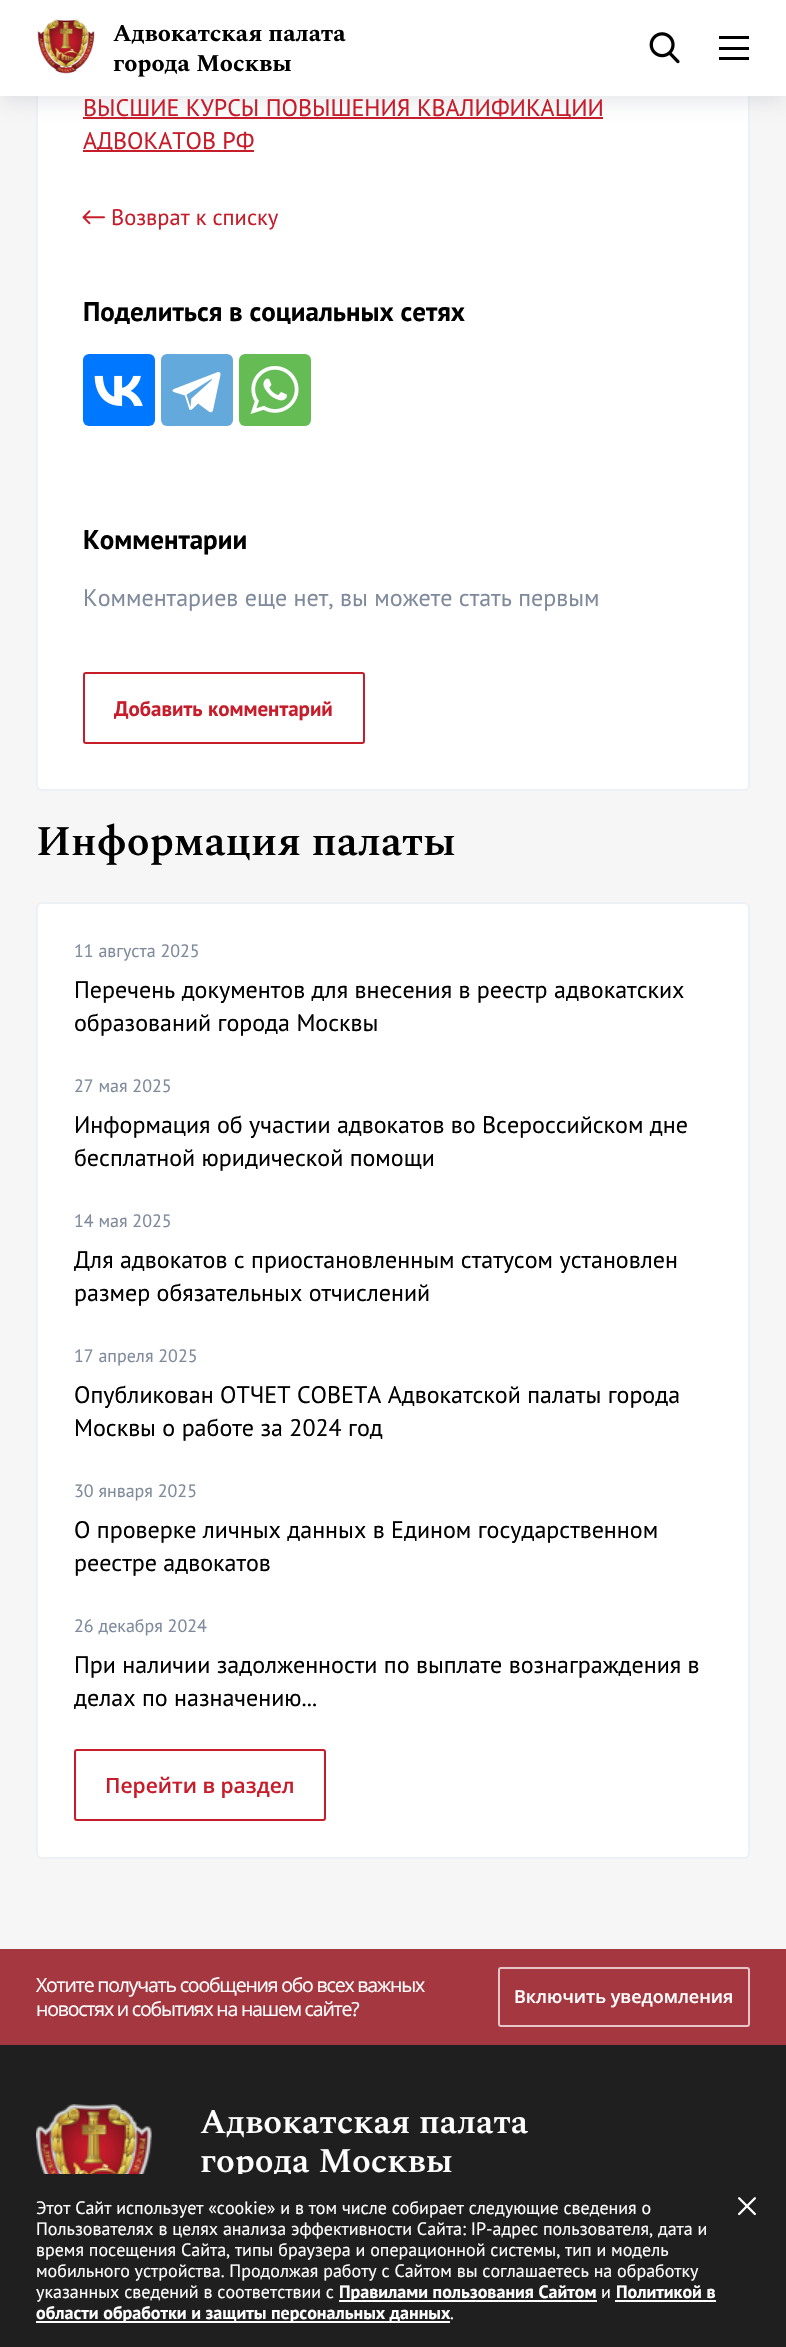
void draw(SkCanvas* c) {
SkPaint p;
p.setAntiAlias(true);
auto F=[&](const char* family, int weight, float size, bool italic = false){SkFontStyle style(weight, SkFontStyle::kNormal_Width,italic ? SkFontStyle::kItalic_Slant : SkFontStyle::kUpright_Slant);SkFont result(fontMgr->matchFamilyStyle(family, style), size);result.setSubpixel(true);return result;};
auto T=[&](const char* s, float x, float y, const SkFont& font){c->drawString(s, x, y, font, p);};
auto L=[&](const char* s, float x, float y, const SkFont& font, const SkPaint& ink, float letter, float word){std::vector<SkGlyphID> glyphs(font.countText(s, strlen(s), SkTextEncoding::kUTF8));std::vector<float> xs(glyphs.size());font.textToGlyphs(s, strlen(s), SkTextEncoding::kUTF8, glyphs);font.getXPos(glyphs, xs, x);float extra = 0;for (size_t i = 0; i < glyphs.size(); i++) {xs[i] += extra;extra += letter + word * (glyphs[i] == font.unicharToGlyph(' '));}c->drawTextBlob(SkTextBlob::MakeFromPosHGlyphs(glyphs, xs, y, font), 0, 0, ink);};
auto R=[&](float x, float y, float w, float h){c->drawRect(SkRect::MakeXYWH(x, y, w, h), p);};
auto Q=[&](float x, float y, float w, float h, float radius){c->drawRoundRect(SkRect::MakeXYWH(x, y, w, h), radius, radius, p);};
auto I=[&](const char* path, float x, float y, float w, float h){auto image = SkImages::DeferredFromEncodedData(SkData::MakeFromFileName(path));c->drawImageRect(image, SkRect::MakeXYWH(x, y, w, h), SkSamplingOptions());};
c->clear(0xfff6f6f6);
p.setColor(0xffffffff);
c->drawRoundRect(SkRect::MakeXYWH(37,-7,712,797),5,5,p);
p.setStroke(true);
p.setStrokeWidth(2);
p.setColor(0xffedf0f4);
c->drawRoundRect(SkRect::MakeXYWH(37,-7,712,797),5,5,p);
p.setStroke(false);
p.setColor(0xffc71c2a);
R(83,117,520,2);
p.setColor(0x40979da6);
p.setMaskFilter(SkMaskFilter::MakeBlur(kNormal_SkBlurStyle, 10));
c->drawRect(SkRect::MakeXYWH(0,6,786,96),p);
p.setMaskFilter(nullptr);
p.setColor(0xffffffff);
R(0,0,786,96);
I("1.png",37,19,58,55);
auto f1 = F("Spectral",700,24);
p.setColor(0xff000000);
T("Адвокатская палата",113,41,f1);
T("города Москвы",113,71,f1);
I("2.png",649,32,31,32);
R(719,36,30,3);
R(719,47,30,3);
R(719,57,30,3);
auto f2 = F("PT Sans",400,24);
p.setColor(0xffc71c2a);
T("ВЫСШИЕ КУРСЫ ПОВЫШЕНИЯ КВАЛИФИКАЦИИ",83,116,f2);
R(83,150,171,2);
T("АДВОКАТОВ РФ",83,149,f2);
I("3.png",82,210,23,15);
auto f3 = F("PT Sans",400,22.5);
T("Возврат к списку",111,225,f3);
auto f4 = F("PT Sans",700,27);
p.setColor(0xff000000);
T("Поделиться в социальных сетях",83,321,f4);
p.setColor(0xff0077ff);
Q(83,354,72,72,6);
I("4.png",94,375,49,31);
p.setColor(0xff64a9dc);
Q(161,354,72,72,6);
I("5.png",172,372,49,41);
p.setColor(0xff65bc54);
Q(239,354,72,72,6);
I("6.png",250,366,49,48);
p.setColor(0xff000000);
T("Комментарии",83,549,f4);
p.setColor(0xff7f8b9c);
T("Комментариев еще нет, вы можете стать первым",83,606,f2);
p.setStroke(true);
p.setColor(0xffc71c2a);
c->drawRoundRect(SkRect::MakeXYWH(84,673,280,70),2,2,p);
auto f5 = F("PT Sans",700,21);
p.setStroke(false);
T("Добавить комментарий",114,716,f5);
auto f6 = F("Spectral",600,42);
p.setColor(0xff000000);
T("Информация палаты",36,855,f6);
p.setColor(0xffffffff);
c->drawRoundRect(SkRect::MakeXYWH(37,903,712,955),5,5,p);
p.setStroke(true);
p.setColor(0xffedf0f4);
c->drawRoundRect(SkRect::MakeXYWH(37,903,712,955),5,5,p);
auto f7 = F("PT Sans",400,18);
p.setStroke(false);
p.setColor(0xff7f8b9c);
T("11 августа 2025",74,957,f7);
p.setColor(0xff000000);
T("Перечень документов для внесения в реестр адвокатских",74,998,f2);
T("образований города Москвы",74,1031,f2);
p.setColor(0xff7f8b9c);
T("27 мая 2025",74,1092,f7);
p.setColor(0xff000000);
T("Информация об участии адвокатов во Всероссийском дне",74,1133,f2);
T("бесплатной юридической помощи",74,1166,f2);
p.setColor(0xff7f8b9c);
T("14 мая 2025",74,1227,f7);
p.setColor(0xff000000);
T("Для адвокатов с приостановленным статусом установлен",74,1268,f2);
T("размер обязательных отчислений",74,1301,f2);
p.setColor(0xff7f8b9c);
T("17 апреля 2025",74,1362,f7);
p.setColor(0xff000000);
T("Опубликован ОТЧЕТ СОВЕТА Адвокатской палаты города",74,1403,f2);
T("Москвы о работе за 2024 год",74,1436,f2);
p.setColor(0xff7f8b9c);
T("30 января 2025",74,1497,f7);
p.setColor(0xff000000);
T("О проверке личных данных в Едином государственном",74,1538,f2);
T("реестре адвокатов",74,1571,f2);
p.setColor(0xff7f8b9c);
T("26 декабря 2024",74,1632,f7);
p.setColor(0xff000000);
T("При наличии задолженности по выплате вознаграждения в",74,1673,f2);
T("делах по назначению...",74,1706,f2);
p.setStroke(true);
p.setColor(0xffc71c2a);
c->drawRoundRect(SkRect::MakeXYWH(75,1750,250,70),2,2,p);
auto f8 = F("Open Sans",600,21);
p.setStroke(false);
T("Перейти в раздел",105,1793,f8);
p.setColor(0xffa53740);
R(0,1949,786,96);
auto f9 = F("Open Sans",400,19.5);
p.setColor(0xffffffff);
L("Хотите получать сообщения обо всех важных",36,1992,f9,p,-1.2,0);
L("новостях и событиях на нашем сайте?",36,2016,f9,p,-1.2,0);
p.setStroke(true);
p.setColor(0xffe5c5c8);
c->drawRoundRect(SkRect::MakeXYWH(499,1968,250,58),2,2,p);
auto f10 = F("Open Sans",600,18);
p.setStroke(false);
p.setColor(0xffffffff);
T("Включить уведомления",514,2003,f10);
p.setColor(0xff1f1f1f);
R(0,2045,786,129);
I("7.png",36,2104,116,70);
auto f11 = F("Spectral",600,34.5);
p.setColor(0xffffffff);
T("Адвокатская палата",200,2133,f11);
T("города Москвы",200,2172,f11);
p.setColor(0xff1f1f1f);
R(0,2174,786,173);
p.setColor(0xffffffff);
T("Этот Сайт использует «cookie» и в том числе собирает следующие сведения о",36,2214,f7);
I("8.png",738,2197,18,19);
T("Пользователях в целях анализа эффективности Сайта: IP-адрес пользователя, дата и",36,2235,f7);
T("время посещения Сайта, типы браузера и операционной системы, тип и модель",36,2256,f7);
T("мобильного устройства. Продолжая работу с Сайтом вы соглашаетесь на обработку",36,2277,f7);
T("указанных сведений в соответствии с",36,2298,f7);
R(339,2300,258,2);
auto f12 = F("PT Sans",700,18);
T("Правилами пользования Сайтом",339,2298,f12);
T("и",601,2298,f7);
T("Политикой в",616,2298,f12);
R(615,2300,101,2);
R(36,2321,414,2);
T("области обработки и защиты персональных данных",36,2319,f12);
T(".",450,2319,f7);
}
